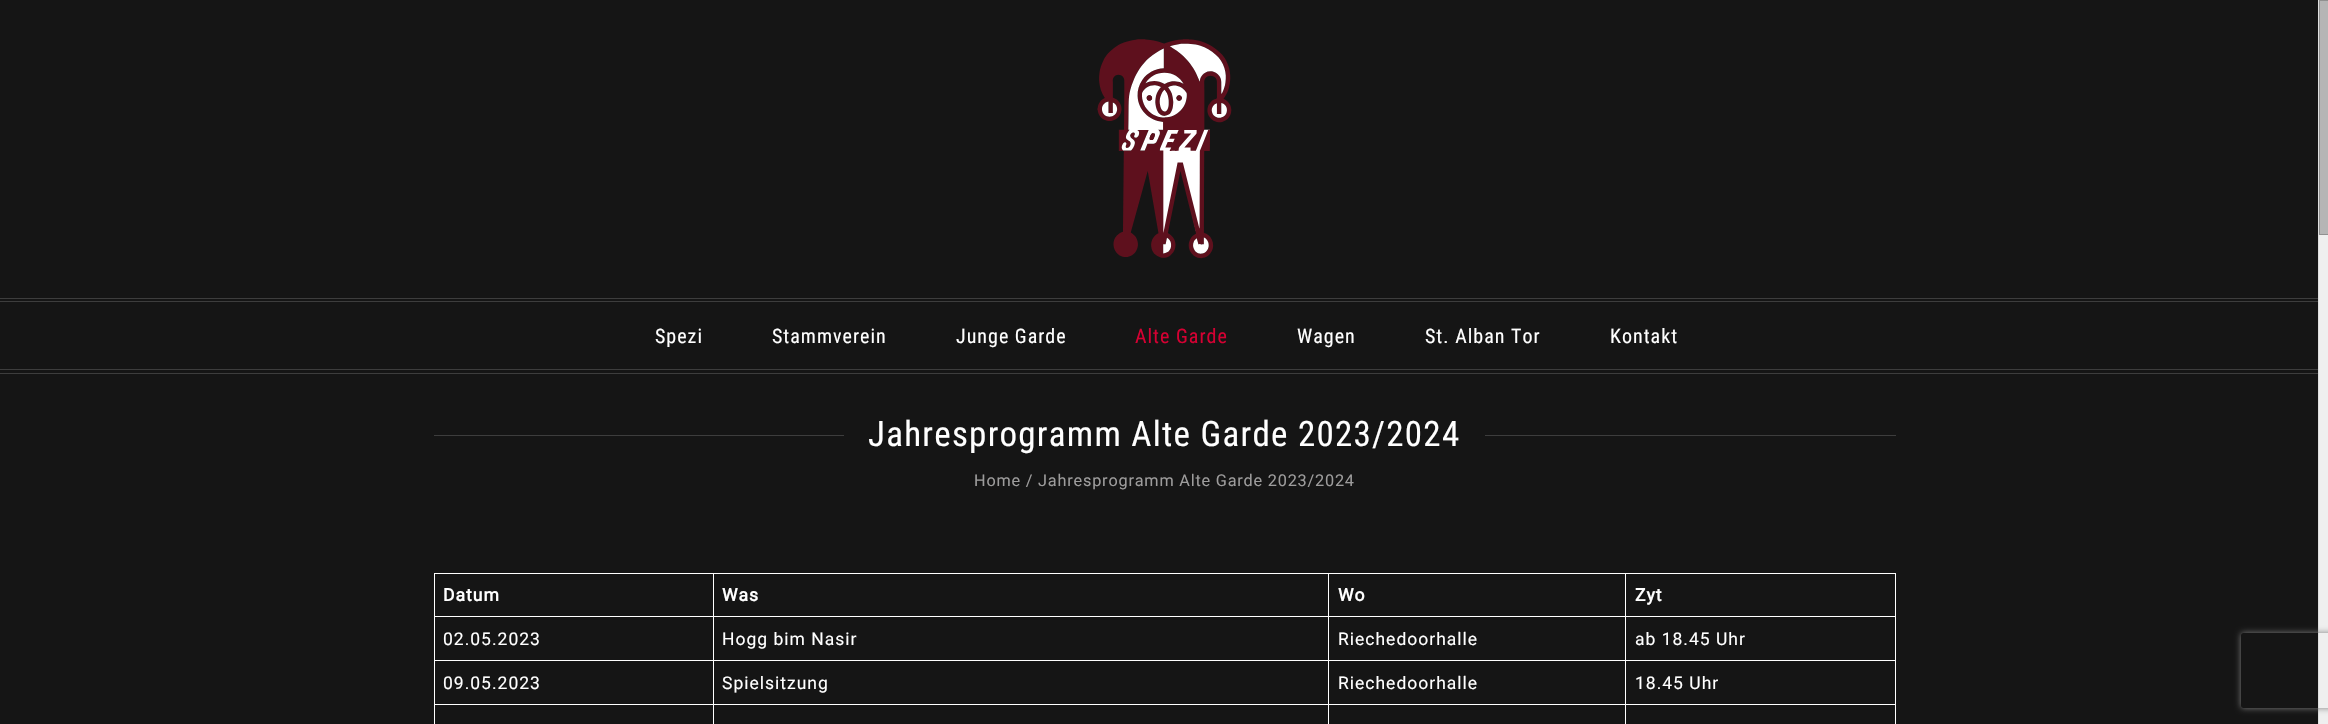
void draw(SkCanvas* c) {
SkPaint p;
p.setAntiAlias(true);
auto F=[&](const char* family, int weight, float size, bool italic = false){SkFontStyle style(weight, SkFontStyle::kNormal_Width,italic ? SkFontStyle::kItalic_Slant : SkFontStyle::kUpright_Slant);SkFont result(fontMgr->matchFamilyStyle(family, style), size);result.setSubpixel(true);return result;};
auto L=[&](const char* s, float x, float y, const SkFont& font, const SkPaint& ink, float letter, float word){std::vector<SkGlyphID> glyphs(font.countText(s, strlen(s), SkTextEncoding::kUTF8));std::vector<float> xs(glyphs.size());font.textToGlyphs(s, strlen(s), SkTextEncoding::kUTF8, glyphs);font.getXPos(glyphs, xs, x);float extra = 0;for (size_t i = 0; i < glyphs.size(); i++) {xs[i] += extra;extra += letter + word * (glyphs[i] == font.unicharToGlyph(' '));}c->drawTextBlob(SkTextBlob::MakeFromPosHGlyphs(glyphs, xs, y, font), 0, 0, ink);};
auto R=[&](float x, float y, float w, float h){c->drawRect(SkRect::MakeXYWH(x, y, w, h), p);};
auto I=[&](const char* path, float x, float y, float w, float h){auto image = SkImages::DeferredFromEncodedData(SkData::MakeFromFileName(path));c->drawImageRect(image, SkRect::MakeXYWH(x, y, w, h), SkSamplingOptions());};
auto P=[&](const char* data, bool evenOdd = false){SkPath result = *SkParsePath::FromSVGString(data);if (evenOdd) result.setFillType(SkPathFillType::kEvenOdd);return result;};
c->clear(0xff151515);
I("1.png",1097,39,135,220);
p.setColor(0xff3d3d3d);
R(0,298,2318,1);
R(0,373,2318,1);
R(0,301,2318,1);
R(0,369,2318,1);
auto f1 = F("Roboto Condensed",400,20);
p.setColor(0xffffffff);
L("Spezi",655,343,f1,p,1,0);
L("Stammverein",772,343,f1,p,1,0);
L("Junge Garde",956,343,f1,p,1,0);
p.setColor(0xffd50032);
L("Alte Garde",1135,343,f1,p,1,0);
p.setColor(0xffffffff);
L("Wagen",1297,343,f1,p,1,0);
L("St. Alban Tor",1425,343,f1,p,1,0);
L("Kontakt",1610,343,f1,p,1,0);
p.setColor(0xff3d3d3d);
R(434,435,1462,1);
p.setColor(0xff151515);
R(844,435,641,1);
auto f2 = F("Roboto Condensed",400,35);
p.setColor(0xffffffff);
L("Jahresprogramm Alte Garde 2023/2024",868,446,f2,p,1.25,0);
auto f3 = F("Roboto",400,16.25);
p.setColor(0xff9d9c9c);
L("Home / Jahresprogramm Alte Garde 2023/2024",974,486,f3,p,.8,0);
p.setColor(0xffffffff);
R(1625,573,271,1);
R(1625,616,271,1);
R(1625,660,271,1);
R(1625,704,271,1);
R(1625,704,1,20);
R(1328,704,298,1);
R(1625,660,1,45);
R(1328,660,298,1);
R(1625,616,1,45);
R(1328,616,298,1);
R(1625,573,1,45);
R(1328,573,298,1);
R(1328,704,1,20);
R(713,704,616,1);
R(1328,660,1,45);
R(713,660,616,1);
R(1328,616,1,45);
R(713,616,616,1);
R(1328,573,1,45);
R(713,573,616,1);
R(713,704,1,20);
R(434,704,280,1);
R(713,660,1,45);
R(434,660,280,1);
R(713,616,1,45);
R(434,616,280,1);
R(713,573,1,45);
R(434,573,280,1);
R(434,704,1,20);
R(434,660,1,45);
R(434,616,1,45);
R(434,573,1,45);
auto f4 = F("Roboto",700,17.5);
L("Datum",443,601,f4,p,1,0);
L("Was",722,601,f4,p,1,0);
L("Wo",1338,601,f4,p,1,0);
R(1895,704,1,20);
R(1895,660,1,45);
R(1895,616,1,45);
R(1895,573,1,45);
L("Zyt",1635,601,f4,p,1,0);
auto f5 = F("Roboto",400,17.5);
L("02.05.2023",443,645,f5,p,1,0);
L("Hogg bim Nasir",722,645,f5,p,1,0);
L("Riechedoorhalle",1338,645,f5,p,1,0);
L("ab 18.45 Uhr",1635,645,f5,p,1,0);
L("09.05.2023",443,689,f5,p,1,0);
L("Spielsitzung",722,689,f5,p,1,0);
L("Riechedoorhalle",1338,689,f5,p,1,0);
L("18.45 Uhr",1635,689,f5,p,1,0);
p.setColor(0xffefefef);
R(2319,235,9,489);
p.setColor(0xffdfdfdf);
R(2318,0,1,724);
p.setColor(0xffb5b5b5);
c->drawRect(SkRect::MakeXYWH(2319.5,.5,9,234),p);
p.setStroke(true);
p.setStrokeWidth(1);
p.setColor(0xff909090);
c->drawRect(SkRect::MakeXYWH(2319.5,.5,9,234),p);
c->save();
c->clipPath(P("M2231 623h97v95h-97zm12.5 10h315c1.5 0 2.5 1 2.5 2.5v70c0 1.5-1 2.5-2.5 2.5h-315c-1.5 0-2.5-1-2.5-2.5v-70c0-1.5 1-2.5 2.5-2.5z",true),true);
p.setStroke(false);
p.setColor(0xff808080);
p.setMaskFilter(SkMaskFilter::MakeBlur(kNormal_SkBlurStyle, 3));
c->drawRoundRect(SkRect::MakeXYWH(2241,633,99,75),2.5,2.5,p);
p.setMaskFilter(nullptr);
c->restore();
}
